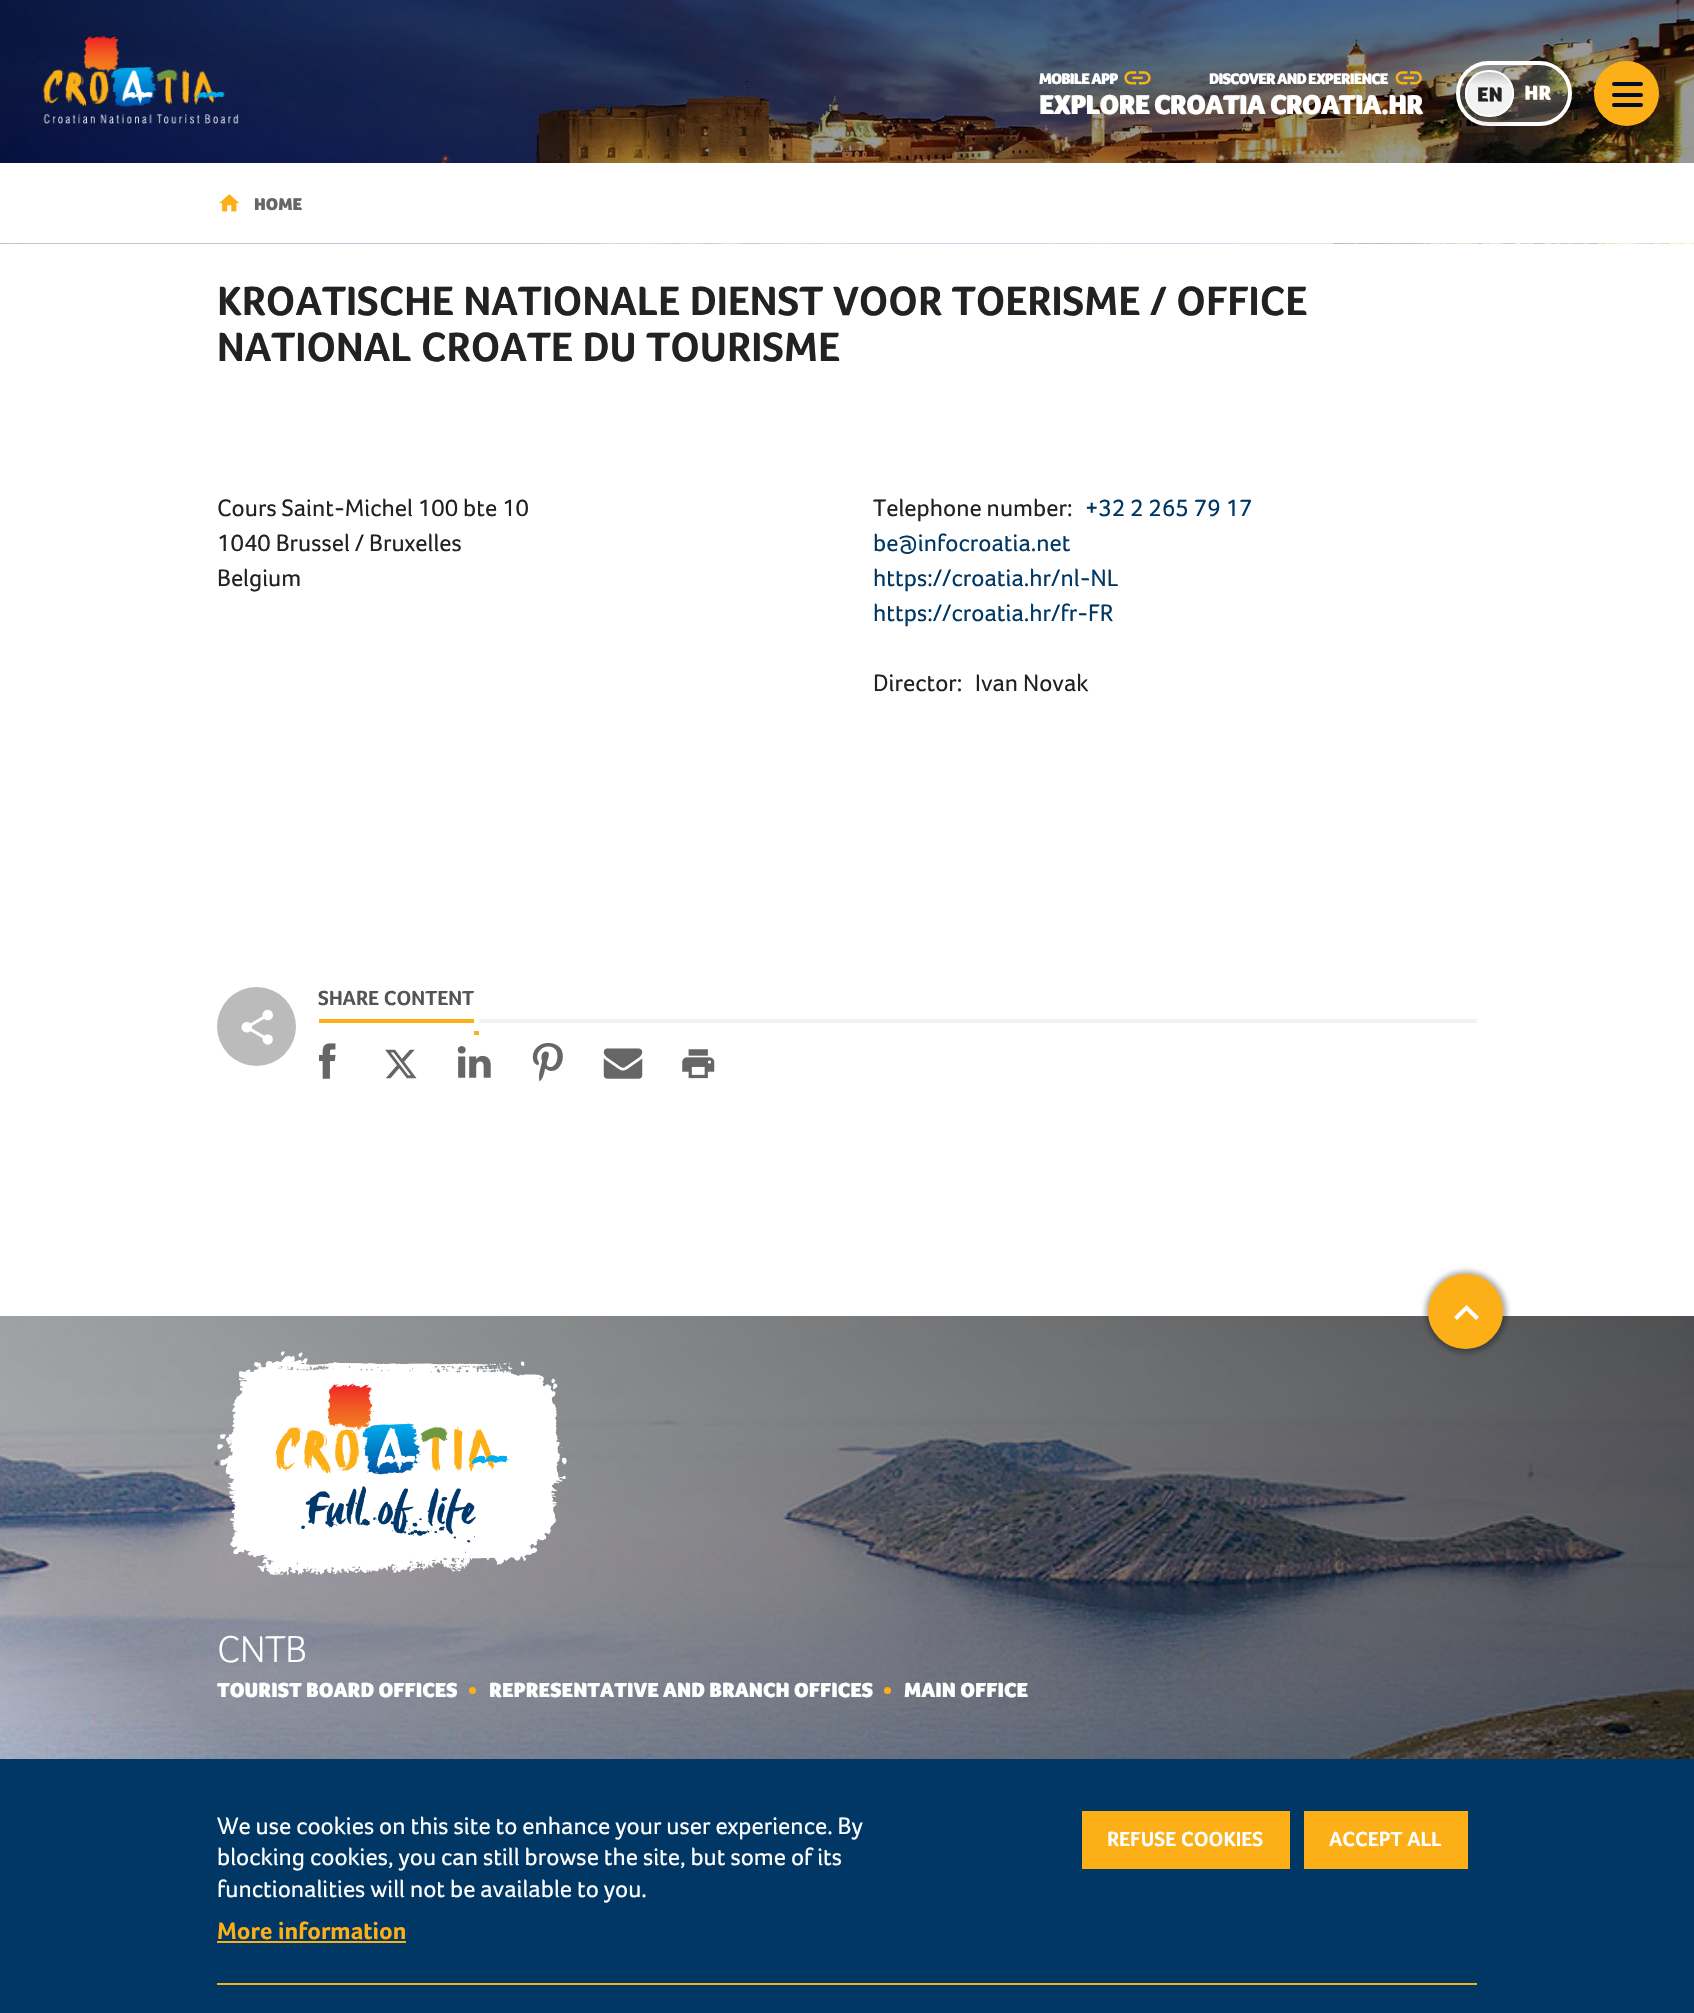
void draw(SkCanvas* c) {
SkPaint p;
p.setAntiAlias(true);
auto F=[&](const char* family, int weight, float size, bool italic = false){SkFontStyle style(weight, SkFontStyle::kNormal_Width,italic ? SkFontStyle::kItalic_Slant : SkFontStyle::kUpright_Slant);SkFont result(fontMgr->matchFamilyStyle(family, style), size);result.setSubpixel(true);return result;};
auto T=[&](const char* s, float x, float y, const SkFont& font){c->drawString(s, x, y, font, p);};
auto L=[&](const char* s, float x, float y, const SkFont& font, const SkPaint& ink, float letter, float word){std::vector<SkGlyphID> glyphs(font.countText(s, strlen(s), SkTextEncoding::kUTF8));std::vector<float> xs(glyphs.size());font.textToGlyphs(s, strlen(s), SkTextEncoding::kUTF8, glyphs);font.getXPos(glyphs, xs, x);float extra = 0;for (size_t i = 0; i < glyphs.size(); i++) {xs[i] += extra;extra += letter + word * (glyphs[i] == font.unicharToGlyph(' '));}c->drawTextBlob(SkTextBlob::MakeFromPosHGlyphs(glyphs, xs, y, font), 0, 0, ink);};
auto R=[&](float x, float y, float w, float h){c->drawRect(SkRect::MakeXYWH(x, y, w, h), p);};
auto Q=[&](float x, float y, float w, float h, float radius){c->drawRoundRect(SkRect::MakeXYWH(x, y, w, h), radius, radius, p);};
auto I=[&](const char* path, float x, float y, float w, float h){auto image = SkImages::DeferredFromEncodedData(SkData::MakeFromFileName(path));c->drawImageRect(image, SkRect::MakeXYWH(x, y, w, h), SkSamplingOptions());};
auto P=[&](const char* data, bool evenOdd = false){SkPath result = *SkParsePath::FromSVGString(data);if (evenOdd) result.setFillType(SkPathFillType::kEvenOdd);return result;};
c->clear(0xffffffff);
I("1.png",0,0,1694,244);
I("2.png",43,35,196,89);
p.setColor(0xfffcaf17);
c->drawCircle(1626.5,93.5,32.5,p);
p.setColor(0xff000d2f);
Q(1612,82,31,4,2);
Q(1612,93,31,4,2);
Q(1612,103,31,4,2);
auto f1 = F("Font",900,15.75);
p.setColor(0xffffffff);
L("MOBILE APP",1039,84,f1,p,-.9,0);
I("3.png",1124,71,27,14);
auto f2 = F("Font",900,28);
L("EXPLORE CROATIA",1039,114,f2,p,-.9,0);
L("DISCOVER AND EXPERIENCE",1209,84,f1,p,-.9,0);
I("4.png",1395,71,27,14);
L("CROATIA.HR",1270,114,f2,p,-.9,0);
p.setColor(0x33ffffff);
c->drawRoundRect(SkRect::MakeXYWH(1458,63,112,61),30.5,30.5,p);
p.setStroke(true);
p.setStrokeWidth(4);
p.setColor(0xffffffff);
c->drawRoundRect(SkRect::MakeXYWH(1458,63,112,61),30.5,30.5,p);
I("6.png",1525,85,27,15);
p.setStroke(false);
p.setColor(0x40000000);
p.setMaskFilter(SkMaskFilter::MakeBlur(kNormal_SkBlurStyle, 4.5));
c->drawRoundRect(SkRect::MakeXYWH(1468,74,49,47),23.5,23.5,p);
p.setMaskFilter(nullptr);
c->save();
c->clipPath(P("M1488.5 70h2c13 0 23.5 10.5 23.5 23.5c0 13-10.5 23.5-23.5 23.5h-2c-13 0-23.5-10.5-23.5-23.5c0-13 10.5-23.5 23.5-23.5z"),true);
{
const SkColor colors[] = {0xffc2c2c2,0xfff2f2f2};
const float stops[] = {0,.3};
const SkPoint ends[] = {{1489,72}, {1489,116}};
p.setShader(SkGradientShader::MakeLinear(ends, colors, stops, 2, SkTileMode::kClamp));
p.setAlpha(255);
}
R(1465,72,49,44);
c->restore();
p.setStroke(true);
p.setStrokeWidth(2);
p.setShader(nullptr);
p.setColor(0xffffffff);
c->drawRoundRect(SkRect::MakeXYWH(1466,71,47,45),22.5,22.5,p);
I("5.png",1478,87,24,15);
p.setStroke(false);
R(0,163,1694,80);
I("7.png",219,194,21,18);
auto f3 = F("Font",900,17.5);
p.setColor(0xff666666);
T("HOME",254,210,f3);
auto f4 = F("Font",700,42);
p.setColor(0xff222222);
T("KROATISCHE NATIONALE DIENST VOOR TOERISME / OFFICE",217,315,f4);
T("NATIONAL CROATE DU TOURISME",217,361,f4);
auto f5 = F("Font",400,24.5);
T("Cours Saint-Michel 100 bte 10",217,516,f5);
T("1040 Brussel / Bruxelles",217,551,f5);
T("Belgium",217,586,f5);
T("Telephone number:",873,516,f5);
p.setColor(0xff003764);
T("+32 2 265 79 17",1085,516,f5);
T("be@infocroatia.net",873,551,f5);
T("https://croatia.hr/nl-NL",873,586,f5);
T("https://croatia.hr/fr-FR",873,621,f5);
p.setColor(0xff222222);
T("Director:",873,691,f5);
T("Ivan Novak",975,691,f5);
p.setColor(0xffbbbbbb);
c->drawCircle(256.5,1026.5,39.5,p);
I("8.png",241,1009,32,36);
auto f6 = F("Font",700,21);
p.setColor(0xff555555);
T("SHARE CONTENT",318,1005,f6);
p.setColor(0xfffcaf17);
R(319,1019,155,4);
R(474,1031,5,4);
p.setColor(0xfff2f2f2);
R(479,1019,998,4);
I("9.png",319,1043,17,36);
I("10.png",385,1049,32,30);
I("11.png",457,1046,34,32);
I("12.png",532,1043,31,39);
I("13.png",603,1048,40,31);
I("14.png",682,1049,33,30);
I("15.png",0,1316,1694,443);
p.setColor(0x4d000000);
p.setMaskFilter(SkMaskFilter::MakeBlur(kNormal_SkBlurStyle, 2.5));
c->drawRoundRect(SkRect::MakeXYWH(1425,1271,82,82),41,41,p);
p.setMaskFilter(nullptr);
p.setColor(0xfffcaf17);
c->drawCircle(1465.5,1311.5,35.5,p);
p.setStroke(true);
p.setStrokeWidth(4);
c->drawCircle(1465.5,1311.5,35.5,p);
p.setStroke(false);
p.setColor(0xffffffff);
c->drawPath(P("M1466.5 1305l12.5 12l-3 3l-9.5-9.5l-9.5 9.5l-3-3z"),p);
I("16.png",217,1351,350,224);
auto f7 = F("Font",300,38.5);
T("CNTB",217,1662,f7);
auto f8 = F("Font",900,21);
T("TOURIST BOARD OFFICES",217,1697,f8);
p.setColor(0xfffcaf17);
c->drawCircle(472.5,1690.5,3.5,p);
p.setColor(0xffffffff);
T("REPRESENTATIVE AND BRANCH OFFICES",489,1697,f8);
p.setColor(0xfffcaf17);
c->drawCircle(887.5,1690.5,3.5,p);
p.setColor(0xffffffff);
T("MAIN OFFICE",904,1697,f8);
p.setColor(0xff003764);
R(0,1759,1694,254);
p.setColor(0xffffffff);
T("We use cookies on this site to enhance your user experience. By",217,1834,f5);
T("blocking cookies, you can still browse the site, but some of its",217,1865,f5);
T("functionalities will not be available to you.",217,1897,f5);
auto f9 = F("Font",700,24.5);
p.setColor(0xfffcaf17);
T("More information",217,1939,f9);
R(217,1941,189,2);
R(1082,1811,208,58);
p.setColor(0xffffffff);
T("REFUSE COOKIES",1107,1846,f6);
p.setColor(0xfffcaf17);
R(1304,1811,164,58);
p.setColor(0xffffffff);
T("ACCEPT ALL",1329,1846,f6);
p.setColor(0xfffcaf17);
R(217,1983,1260,2);
}
